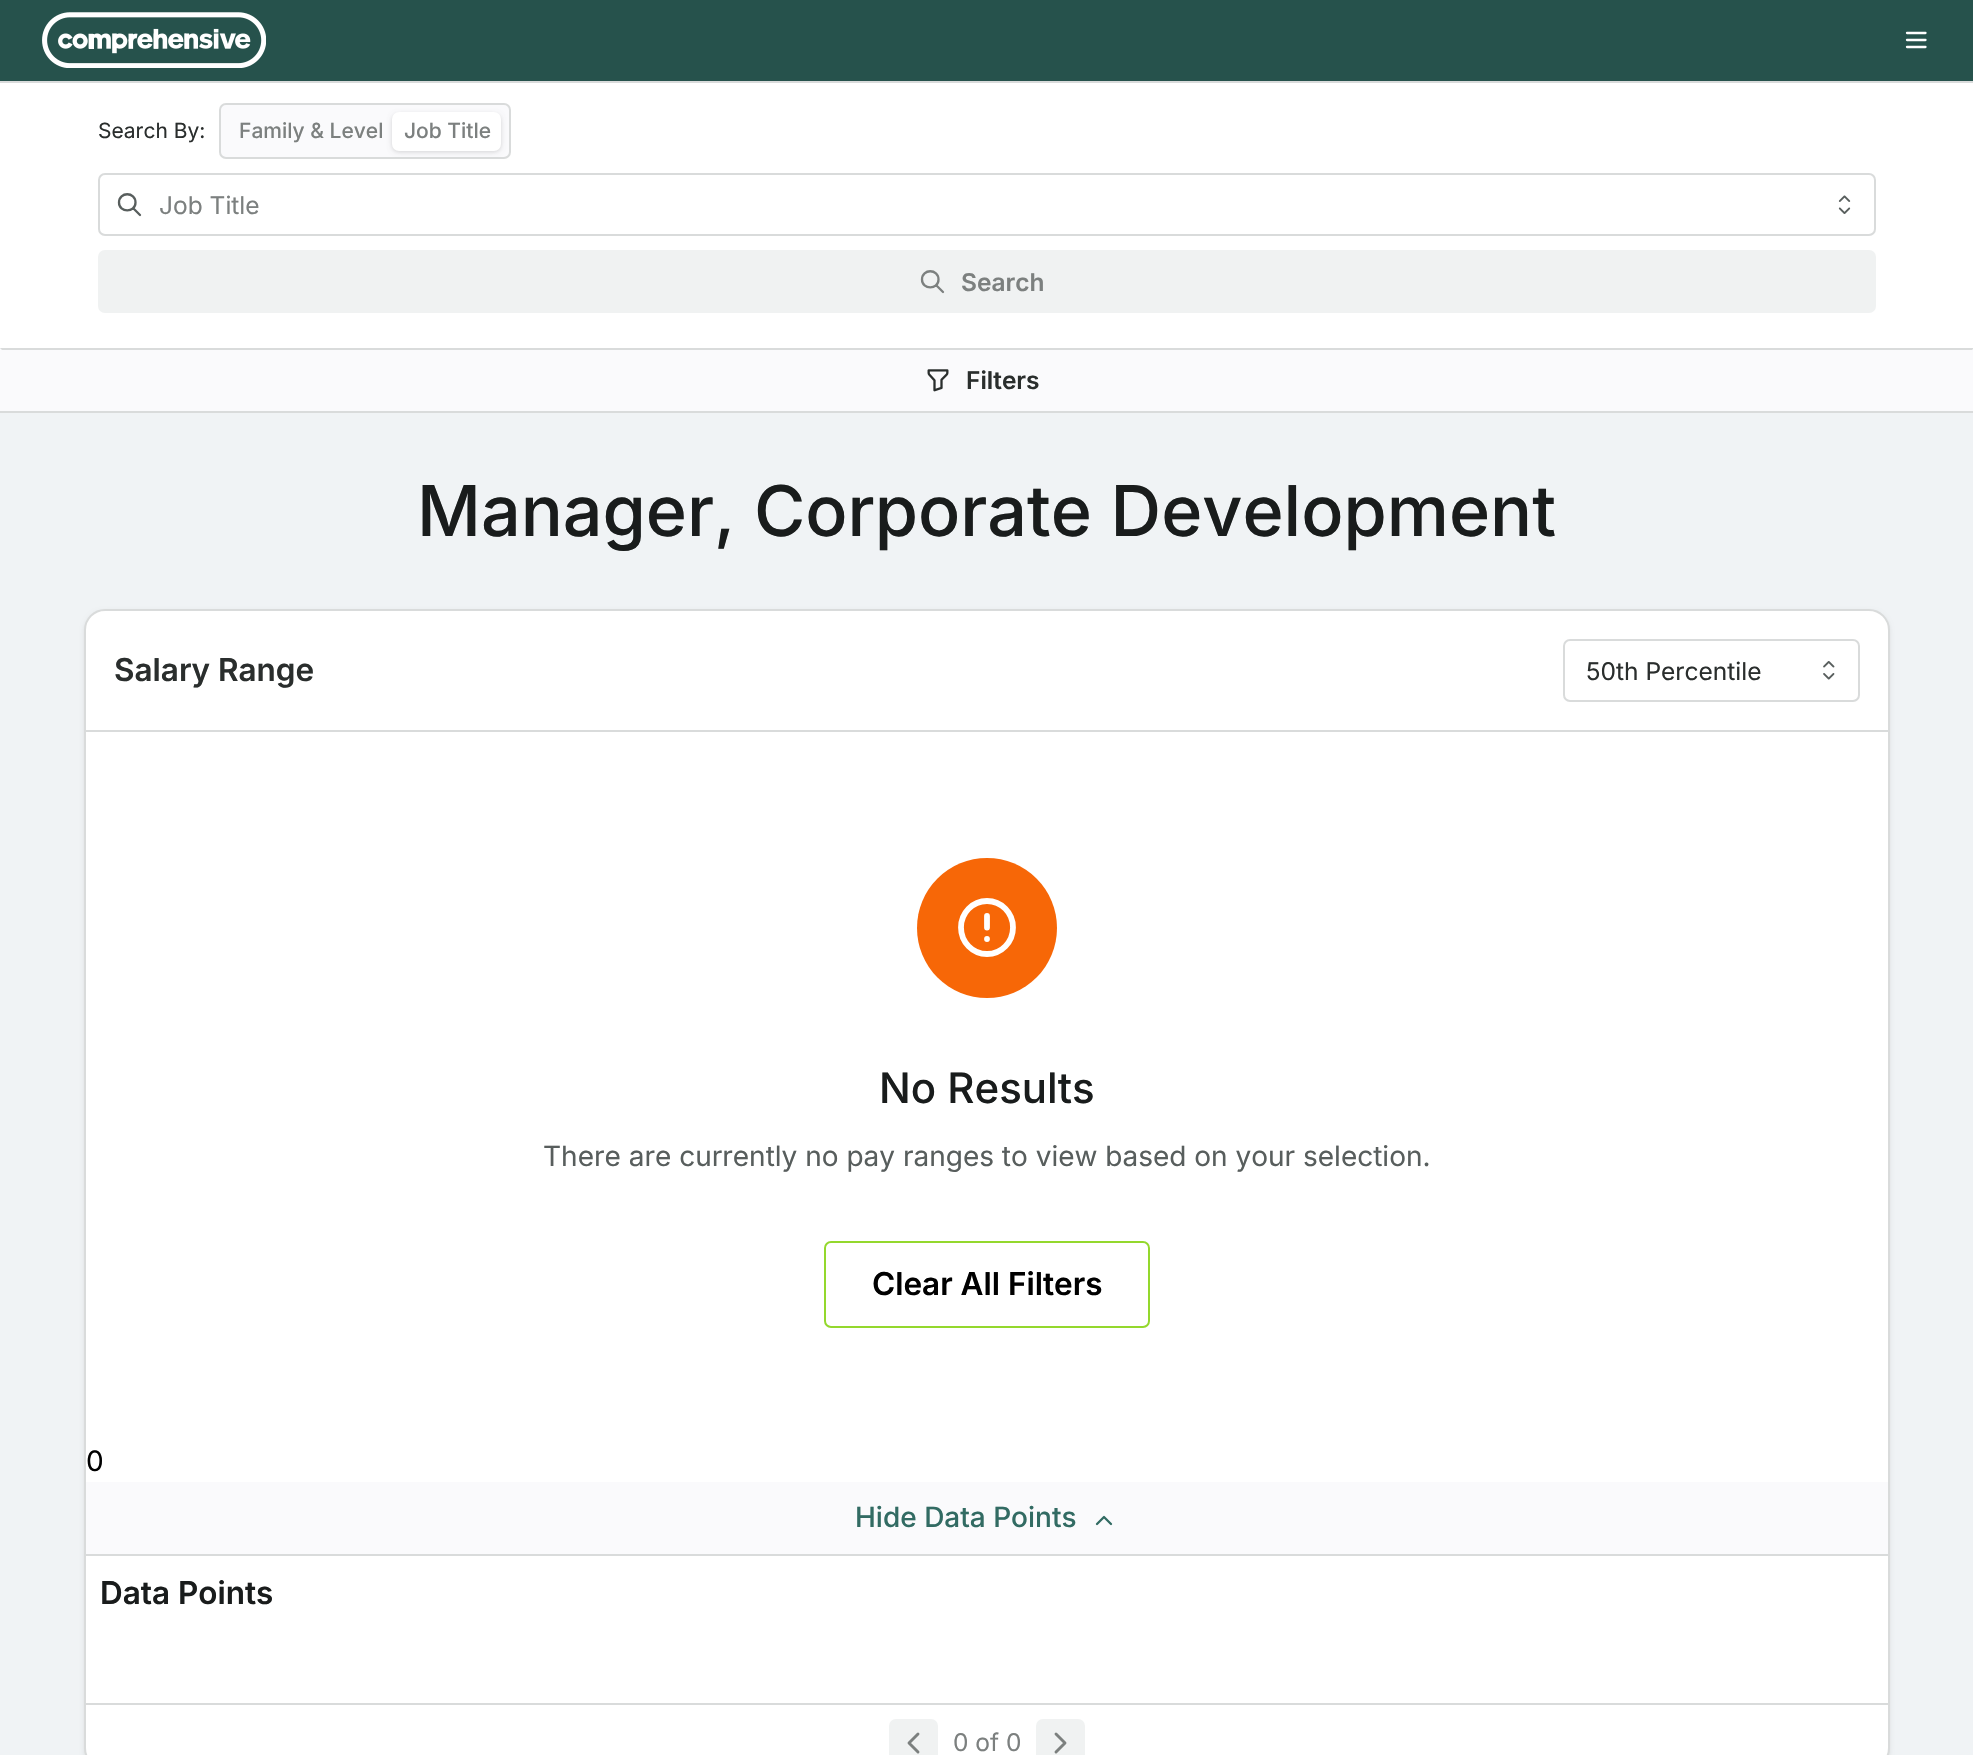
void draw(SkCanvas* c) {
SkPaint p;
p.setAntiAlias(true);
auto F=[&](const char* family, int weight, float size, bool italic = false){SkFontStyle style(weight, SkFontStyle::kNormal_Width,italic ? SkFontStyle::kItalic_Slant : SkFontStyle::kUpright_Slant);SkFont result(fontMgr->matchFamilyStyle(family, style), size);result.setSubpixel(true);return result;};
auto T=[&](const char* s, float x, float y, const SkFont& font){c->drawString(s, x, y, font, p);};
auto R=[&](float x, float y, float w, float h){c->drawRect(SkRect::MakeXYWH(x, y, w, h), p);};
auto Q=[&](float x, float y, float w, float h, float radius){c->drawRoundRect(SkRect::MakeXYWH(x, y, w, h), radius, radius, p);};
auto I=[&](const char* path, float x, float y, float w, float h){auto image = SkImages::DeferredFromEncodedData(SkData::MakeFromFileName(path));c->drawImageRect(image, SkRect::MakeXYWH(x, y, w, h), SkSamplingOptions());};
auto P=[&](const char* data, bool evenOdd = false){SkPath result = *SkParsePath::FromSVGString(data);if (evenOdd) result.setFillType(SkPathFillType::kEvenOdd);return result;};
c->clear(0xfff0f3f5);
p.setColor(0xff26524c);
R(0,0,1973,81);
I("1.png",42,12,224,56);
p.setStroke(true);
p.setStrokeWidth(2.3);
p.setStrokeCap(SkPaint::kRound_Cap);
p.setStrokeJoin(SkPaint::kRound_Join);
p.setColor(0xffffffff);
c->drawPath(P("M1907 33h18.5m-18.5 7h18.5m-18.5 7h18.5"),p);
p.setStroke(false);
R(0,83,1973,265);
p.setColor(0xffd9dbdb);
R(0,81,1973,2);
R(0,411,1973,2);
auto f1 = F("Inter",400,21);
p.setColor(0xff2a2e2d);
T("Search By:",98,138,f1);
p.setColor(0xfffafafc);
c->drawRoundRect(SkRect::MakeXYWH(220,104,290,54),6,6,p);
p.setStroke(true);
p.setStrokeWidth(2);
p.setStrokeCap(SkPaint::kButt_Cap);
p.setStrokeJoin(SkPaint::kMiter_Join);
p.setColor(0xffd9dbdb);
c->drawRoundRect(SkRect::MakeXYWH(220,104,290,54),6,6,p);
auto f2 = F("Inter",500,21);
p.setStroke(false);
p.setColor(0xff7c807f);
T("Family & Level",239,138,f2);
p.setColor(0x1a000000);
p.setMaskFilter(SkMaskFilter::MakeBlur(kNormal_SkBlurStyle, 2));
c->drawRoundRect(SkRect::MakeXYWH(392,114,109,38),7,7,p);
p.setMaskFilter(nullptr);
p.setColor(0x0d000000);
p.setMaskFilter(SkMaskFilter::MakeBlur(kNormal_SkBlurStyle, 2.5));
c->drawRoundRect(SkRect::MakeXYWH(392,114,109,38),7,7,p);
p.setMaskFilter(nullptr);
p.setColor(0xffffffff);
Q(392,112,109,39,7);
p.setColor(0xff7c807f);
T("Job Title",404,138,f2);
p.setStroke(true);
p.setColor(0xffd9dbdb);
c->drawRoundRect(SkRect::MakeXYWH(99,174,1776,61),6,6,p);
p.setStrokeWidth(2.3);
p.setStrokeCap(SkPaint::kRound_Cap);
p.setStrokeJoin(SkPaint::kRound_Join);
p.setColor(0xff585e5d);
c->drawPath(P("M119 202.5c0 10.5 16.5 10.5 16.5 0c0-11-16.5-11-16.5 0m21 12.5l-7-7"),p);
auto f3 = F("Inter",400,24.5);
p.setStroke(false);
p.setColor(0xff7c807f);
T("Job Title",159,214,f3);
I("2.png",1838,195,13,19);
p.setColor(0xfff0f2f2);
Q(98,250,1778,63,7);
p.setStroke(true);
p.setColor(0xff7c807f);
c->drawPath(P("M922 279.5c0 10.5 16.5 10.5 16.5 0c0-11-16.5-11-16.5 0m21 12.5l-7-7"),p);
auto f4 = F("Inter",600,24.5);
p.setStroke(false);
T("Search",961,291,f4);
p.setColor(0xfffafafc);
R(0,348,1973,63);
p.setColor(0xffd9dbdb);
c->drawPath(P("M0 348h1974l-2 2h-1970z"),p);
I("3.png",927,369,22,23);
p.setColor(0xff2a2e2d);
T("Filters",966,389,f4);
auto f5 = F("Inter",500,70);
p.setColor(0xff191c1c);
T("Manager, Corporate Development",417,536,f5);
p.setColor(0x14000000);
p.setMaskFilter(SkMaskFilter::MakeBlur(kNormal_SkBlurStyle, 2));
c->drawRoundRect(SkRect::MakeXYWH(84,611,1806,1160),21,21,p);
p.setMaskFilter(nullptr);
p.setColor(0xffffffff);
c->drawRoundRect(SkRect::MakeXYWH(85,610,1804,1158),20,20,p);
p.setStroke(true);
p.setStrokeWidth(2);
p.setStrokeCap(SkPaint::kButt_Cap);
p.setStrokeJoin(SkPaint::kMiter_Join);
p.setColor(0xffd9dbdb);
c->drawRoundRect(SkRect::MakeXYWH(85,610,1804,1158),20,20,p);
p.setStroke(false);
R(86,730,1802,2);
auto f6 = F("Inter",600,31.5);
p.setColor(0xff2a2e2d);
T("Salary Range",114,681,f6);
p.setStroke(true);
p.setColor(0xffd9dbdb);
c->drawRoundRect(SkRect::MakeXYWH(1564,640,295,61),6,6,p);
p.setStroke(false);
p.setColor(0xff2a2e2d);
T("50th Percentile",1586,680,f3);
I("4.png",1823,661,12,19);
p.setColor(0xfff76707);
c->drawCircle(987,928,70,p);
p.setStroke(true);
p.setStrokeWidth(5.8);
p.setStrokeCap(SkPaint::kRound_Cap);
p.setStrokeJoin(SkPaint::kRound_Join);
p.setColor(0xffffffff);
c->drawPath(P("M961 927.5c0 14.5 11.5 26.5 26 26.5c14.5 0 26-12 26-26.5c0-14.5-11.5-26.5-26-26.5c-14.5 0-26 12-26 26.5m26-11.5v11.5m0 11.5h0"),p);
auto f7 = F("Inter",500,42);
p.setStroke(false);
p.setColor(0xff191c1c);
T("No Results",879,1103,f7);
auto f8 = F("Inter",400,28);
p.setColor(0xff585e5d);
T("There are currently no pay ranges to view based on your selection.",543,1166,f8);
p.setStroke(true);
p.setStrokeWidth(2);
p.setStrokeCap(SkPaint::kButt_Cap);
p.setStrokeJoin(SkPaint::kMiter_Join);
p.setColor(0xff94d82d);
c->drawRoundRect(SkRect::MakeXYWH(825,1242,324,85),6,6,p);
p.setStroke(false);
p.setColor(0xff000000);
T("Clear All Filters",872,1295,f6);
T("0",86,1471,f8);
p.setColor(0xfffafafc);
R(86,1482,1802,72);
auto f9 = F("Inter",500,28);
p.setColor(0xff326b63);
T("Hide Data Points",855,1527,f9);
p.setStroke(true);
p.setStrokeWidth(2.3);
p.setStrokeCap(SkPaint::kRound_Cap);
p.setStrokeJoin(SkPaint::kRound_Join);
c->drawPath(P("M1097 1524l7-7l7 7"),p);
p.setStroke(false);
p.setColor(0xffd9dbdb);
R(86,1554,1802,2);
p.setColor(0xff191c1c);
T("Data Points",100,1604,f6);
p.setColor(0xffd9dbdb);
R(86,1703,1802,2);
p.setColor(0xfff0f2f2);
Q(889,1719,49,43,7);
p.setStroke(true);
p.setStrokeWidth(2.9);
p.setColor(0xff7c807f);
c->drawPath(P("M918 1734l-9 9l9 9"),p);
p.setStroke(false);
T("0 of 0",953,1751,f3);
p.setColor(0xfff0f2f2);
Q(1036,1719,49,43,7);
p.setStroke(true);
p.setColor(0xff7c807f);
c->drawPath(P("M1056 1734l9 9l-9 9"),p);
}
